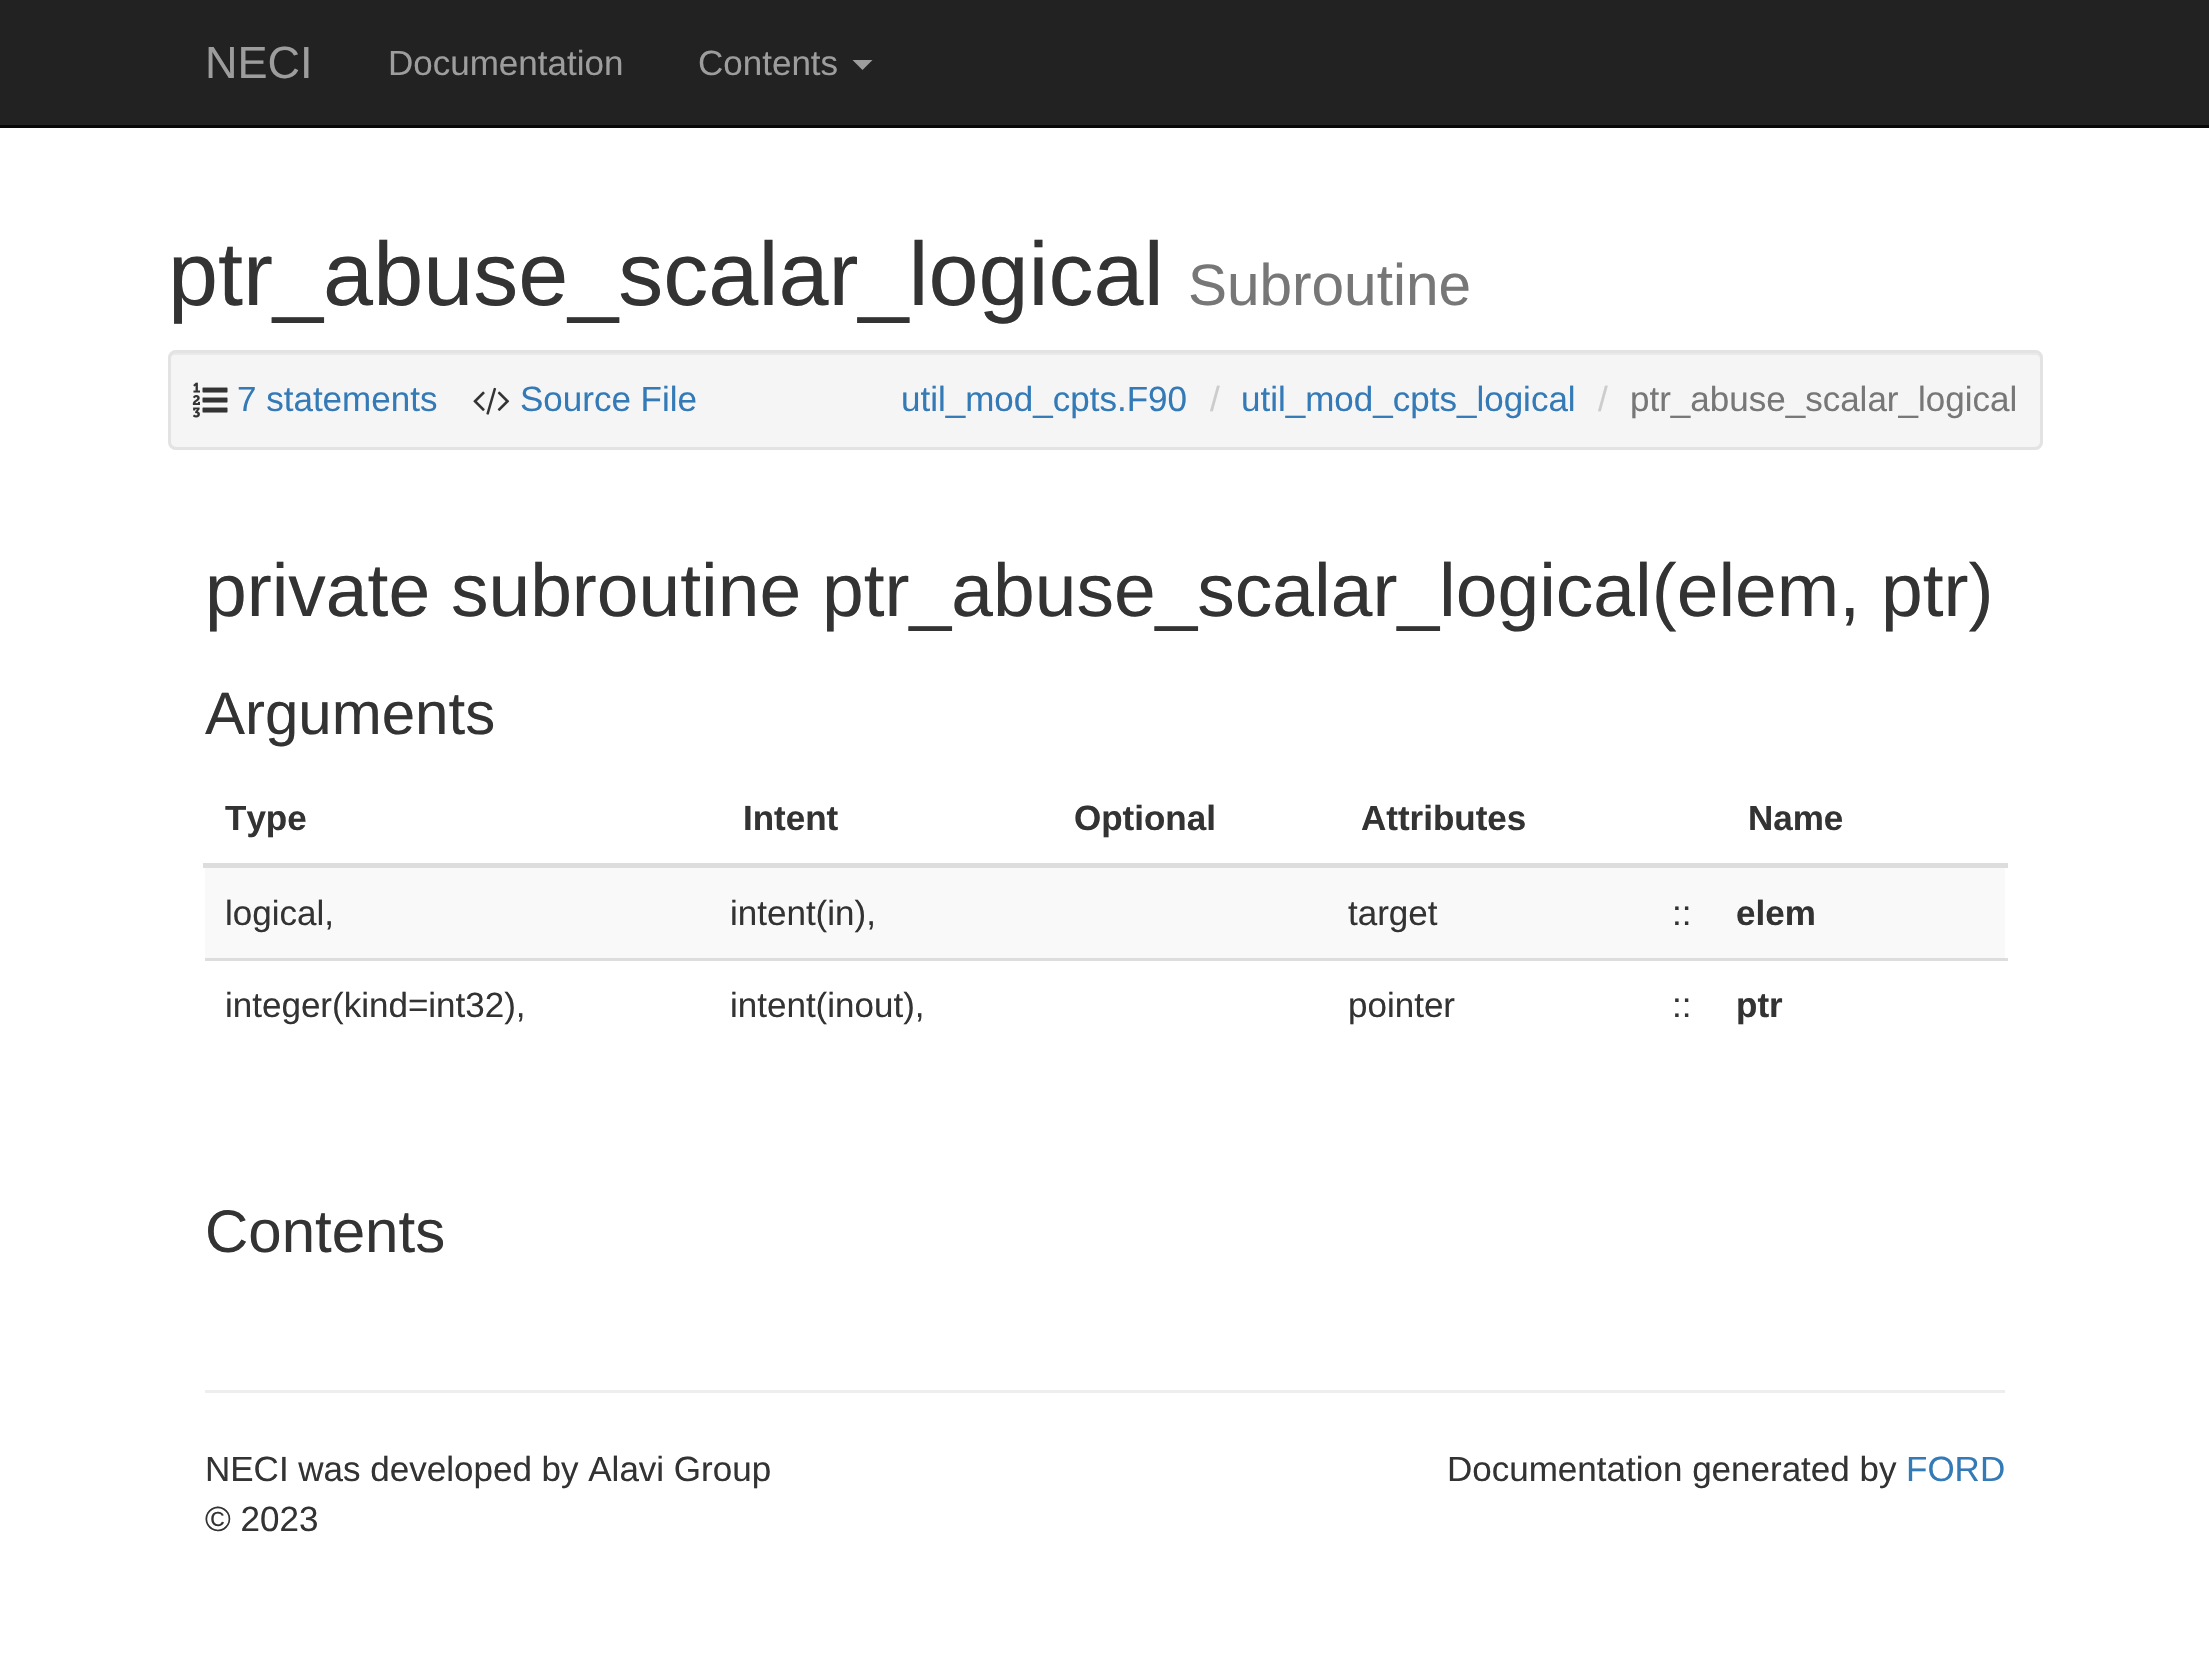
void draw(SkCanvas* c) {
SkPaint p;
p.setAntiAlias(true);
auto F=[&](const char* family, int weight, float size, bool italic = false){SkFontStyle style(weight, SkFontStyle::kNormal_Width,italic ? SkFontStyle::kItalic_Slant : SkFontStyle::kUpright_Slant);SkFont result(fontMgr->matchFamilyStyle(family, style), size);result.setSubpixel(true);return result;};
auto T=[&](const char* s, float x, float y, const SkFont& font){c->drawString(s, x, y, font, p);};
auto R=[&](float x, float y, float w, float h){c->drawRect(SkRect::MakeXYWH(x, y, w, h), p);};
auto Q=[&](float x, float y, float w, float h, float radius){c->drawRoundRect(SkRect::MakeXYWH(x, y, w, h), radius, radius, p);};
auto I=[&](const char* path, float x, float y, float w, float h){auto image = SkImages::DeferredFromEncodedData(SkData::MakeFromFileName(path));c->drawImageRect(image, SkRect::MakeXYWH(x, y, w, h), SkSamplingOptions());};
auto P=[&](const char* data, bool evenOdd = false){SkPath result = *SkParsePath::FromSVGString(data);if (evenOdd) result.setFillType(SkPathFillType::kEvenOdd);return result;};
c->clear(0xffffffff);
p.setColor(0xff222222);
R(0,0,2209,125);
p.setColor(0xff080808);
R(0,125,2209,3);
auto f1 = F("Liberation Sans",400,45);
p.setColor(0xff9d9d9d);
T("NECI",205,78,f1);
auto f2 = F("Liberation Sans",400,35);
T("Documentation",388,75,f2);
T("Contents",698,75,f2);
c->drawPath(P("M852.5 60h20l-10 10z"),p);
auto f3 = F("Liberation Sans",400,90);
p.setColor(0xff333333);
T("ptr_abuse_scalar_logical",168,305,f3);
auto f4 = F("Liberation Sans",400,58.5);
p.setColor(0xff777777);
T("Subroutine",1188,305,f4);
p.setColor(0xfff5f5f5);
Q(168,350,1875,100,8);
p.setColor(0xffe9e9e9);
c->drawPath(P("M175 355h1860c3 0 5 2 5 5c0-3-1-7-5-7h-1860c-4 0-5 4-5 7c0-3 2-5 5-5z"),p);
p.setStroke(true);
p.setStrokeWidth(3);
p.setColor(0xffe3e3e3);
c->drawRoundRect(SkRect::MakeXYWH(169.5,351.5,1872,97),6.5,6.5,p);
I("1.png",192,382,36,36);
p.setStroke(false);
p.setColor(0xff337ab7);
T("7 statements",237,411,f2);
I("2.png",473,387,37,28);
T("Source File",520,411,f2);
T("util_mod_cpts.F90",901,411,f2);
p.setColor(0xffcccccc);
T("/",1210,411,f2);
p.setColor(0xff337ab7);
T("util_mod_cpts_logical",1241,411,f2);
p.setColor(0xffcccccc);
T("/",1598,411,f2);
p.setColor(0xff777777);
T("ptr_abuse_scalar_logical",1630,411,f2);
auto f5 = F("Liberation Sans",400,75);
p.setColor(0xff333333);
T("private subroutine ptr_abuse_scalar_logical(elem, ptr)",205,616,f5);
auto f6 = F("Liberation Sans",400,60);
T("Arguments",205,734,f6);
auto f7 = F("Liberation Sans",700,35);
T("Type",225,830,f7);
T("Intent",743,830,f7);
T("Optional",1074,830,f7);
T("Attributes",1361,830,f7);
T("Name",1748,830,f7);
p.setColor(0xffdddddd);
R(203,863,1805,5);
p.setColor(0xfff9f9f9);
R(205,868,1800,90);
p.setColor(0xff333333);
T("logical,",225,925,f2);
T("intent(in),",730,925,f2);
T("target",1348,925,f2);
T("::",1672,925,f2);
T("elem",1736,925,f7);
p.setColor(0xffdddddd);
R(205,958,1803,3);
p.setColor(0xff333333);
T("integer(kind=int32),",225,1017,f2);
T("intent(inout),",730,1017,f2);
T("pointer",1348,1017,f2);
T("::",1672,1017,f2);
T("ptr",1736,1017,f7);
T("Contents",205,1252,f6);
p.setColor(0xffeeeeee);
R(205,1390,1800,3);
p.setColor(0xff333333);
T("NECI was developed by Alavi Group",205,1481,f2);
T("© 2023",205,1531,f2);
T("Documentation generated by",1447,1481,f2);
p.setColor(0xff337ab7);
T("FORD",1906,1481,f2);
}
